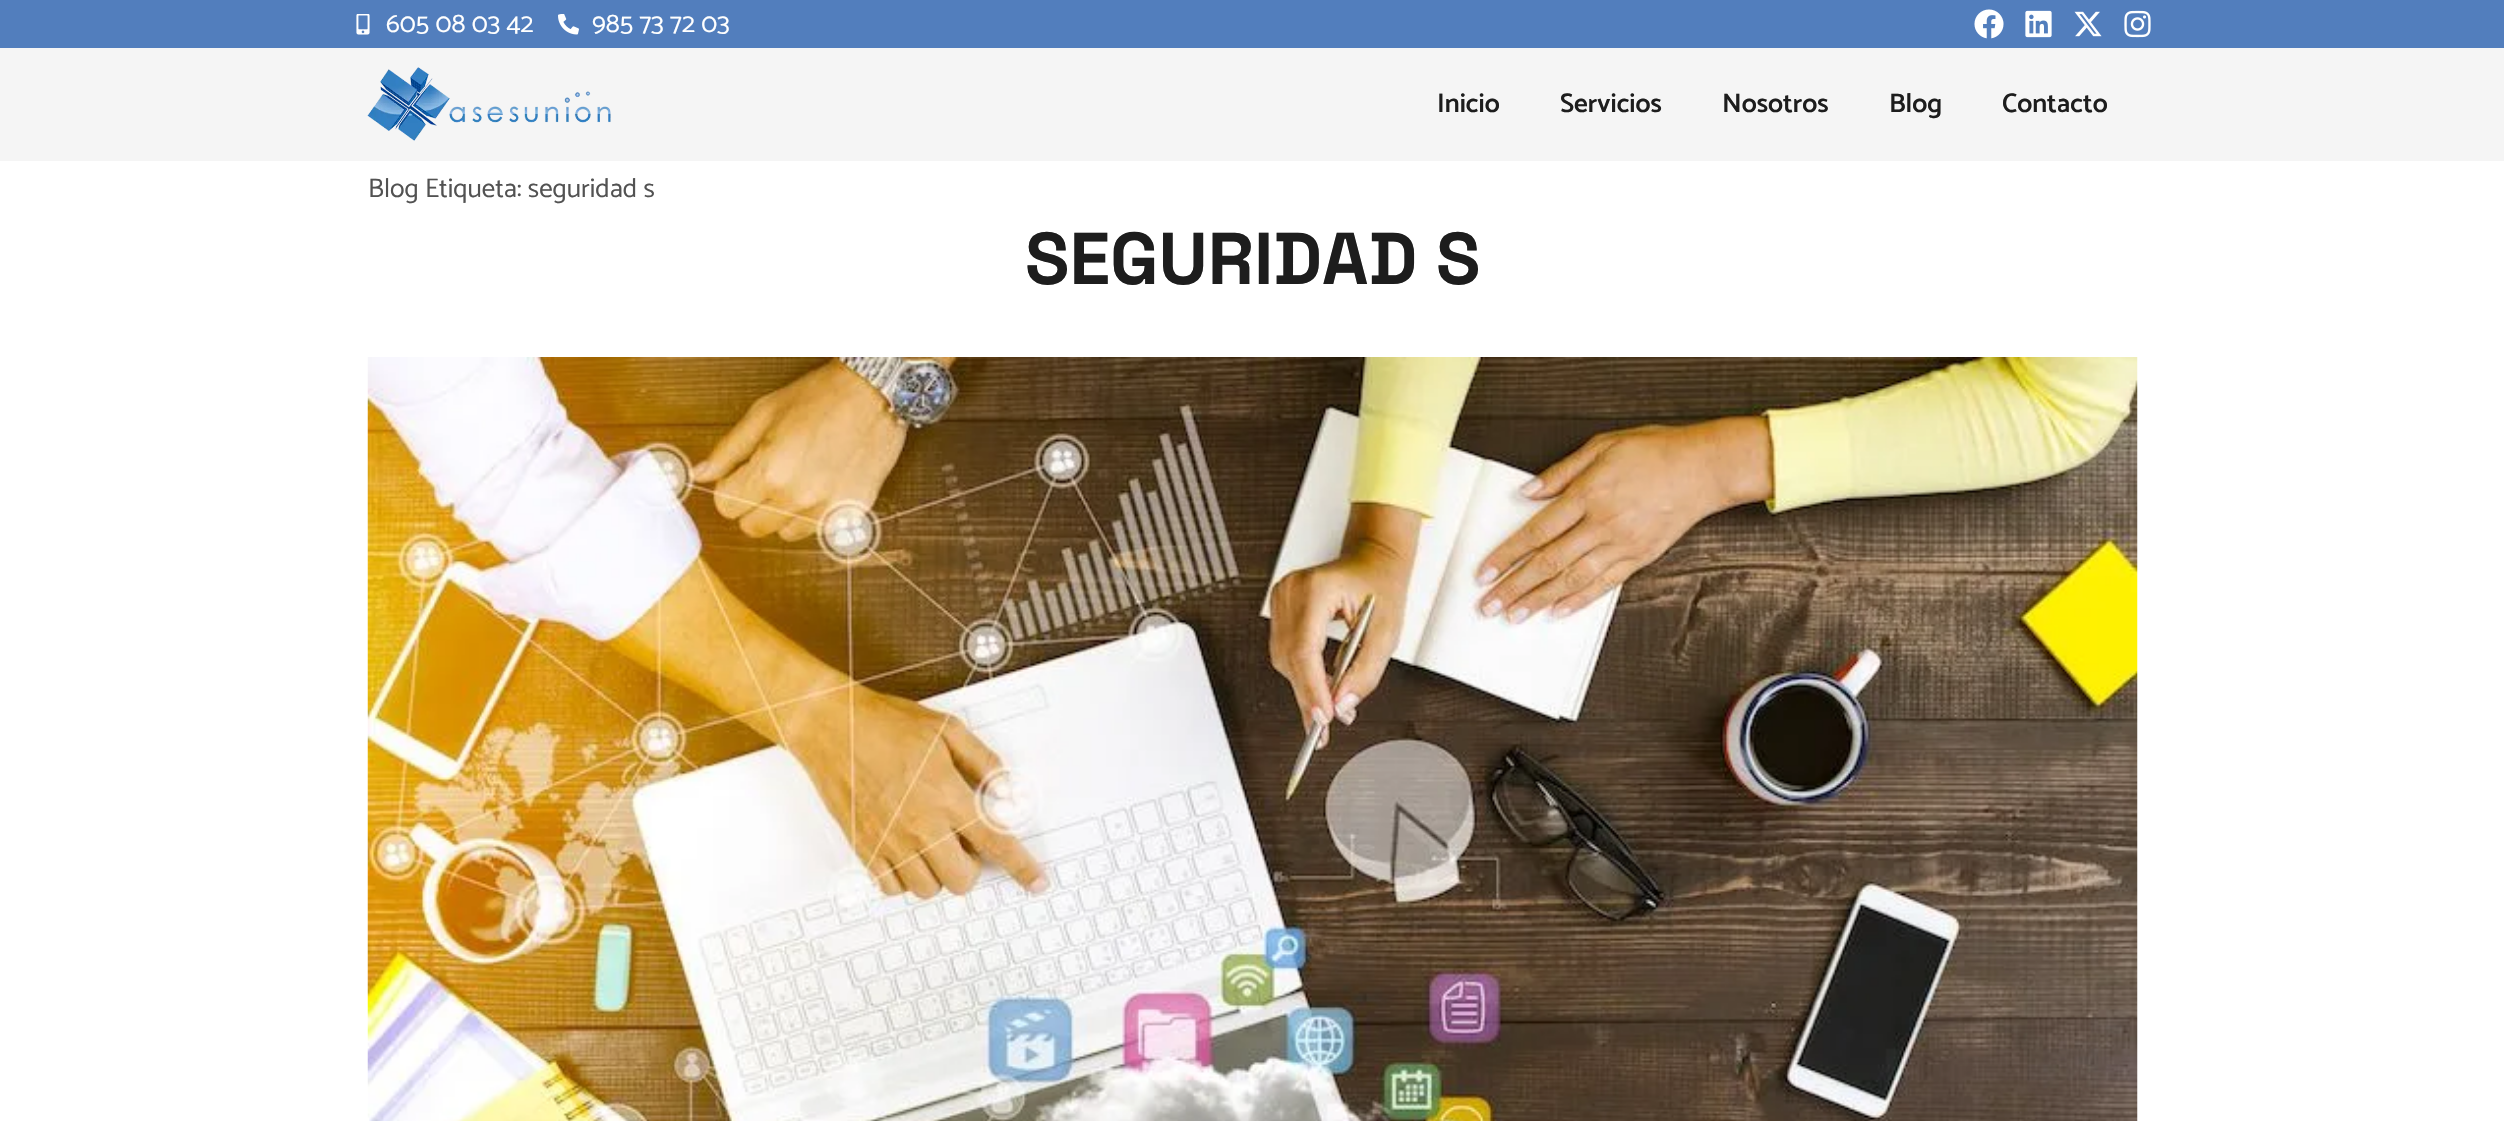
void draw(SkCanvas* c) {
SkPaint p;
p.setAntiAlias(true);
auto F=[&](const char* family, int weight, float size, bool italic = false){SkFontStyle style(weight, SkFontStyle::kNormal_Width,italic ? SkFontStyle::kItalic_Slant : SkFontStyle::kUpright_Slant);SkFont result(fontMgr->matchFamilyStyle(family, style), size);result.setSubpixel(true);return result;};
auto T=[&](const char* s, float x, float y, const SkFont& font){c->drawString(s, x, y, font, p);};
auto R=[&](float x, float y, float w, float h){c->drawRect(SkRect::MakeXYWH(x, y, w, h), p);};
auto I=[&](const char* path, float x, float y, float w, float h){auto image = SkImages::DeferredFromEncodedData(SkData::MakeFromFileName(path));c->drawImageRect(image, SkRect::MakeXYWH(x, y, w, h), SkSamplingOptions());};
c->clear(0xffffffff);
p.setColor(0xff527ebd);
R(0,0,2504,48);
I("1.png",356,14,14,21);
auto f1 = F("Catamaran",400,27);
p.setColor(0xffffffff);
T("605 08 03 42",386,32,f1);
I("2.png",558,14,21,21);
T("985 73 72 03",592,32,f1);
I("3.png",1974,9,30,30);
I("4.png",2025,10,27,28);
I("5.png",2074,11,28,26);
I("6.png",2124,10,27,28);
p.setColor(0xfff5f5f5);
R(0,48,2504,113);
I("7.png",367,67,244,74);
auto f2 = F("Catamaran",600,27);
p.setColor(0xff1d1d1d);
T("Inicio",1437,112,f2);
T("Servicios",1560,112,f2);
T("Nosotros",1722,112,f2);
T("Blog",1889,112,f2);
T("Contacto",2002,112,f2);
p.setColor(0xff525252);
T("Blog Etiqueta: seguridad s",368,197,f1);
auto f3 = F("Space Grotesk",700,73.25);
p.setColor(0xff1d1d1d);
T("SEGURIDAD S",1025,284,f3);
I("8.png",367,357,1771,764);
}
